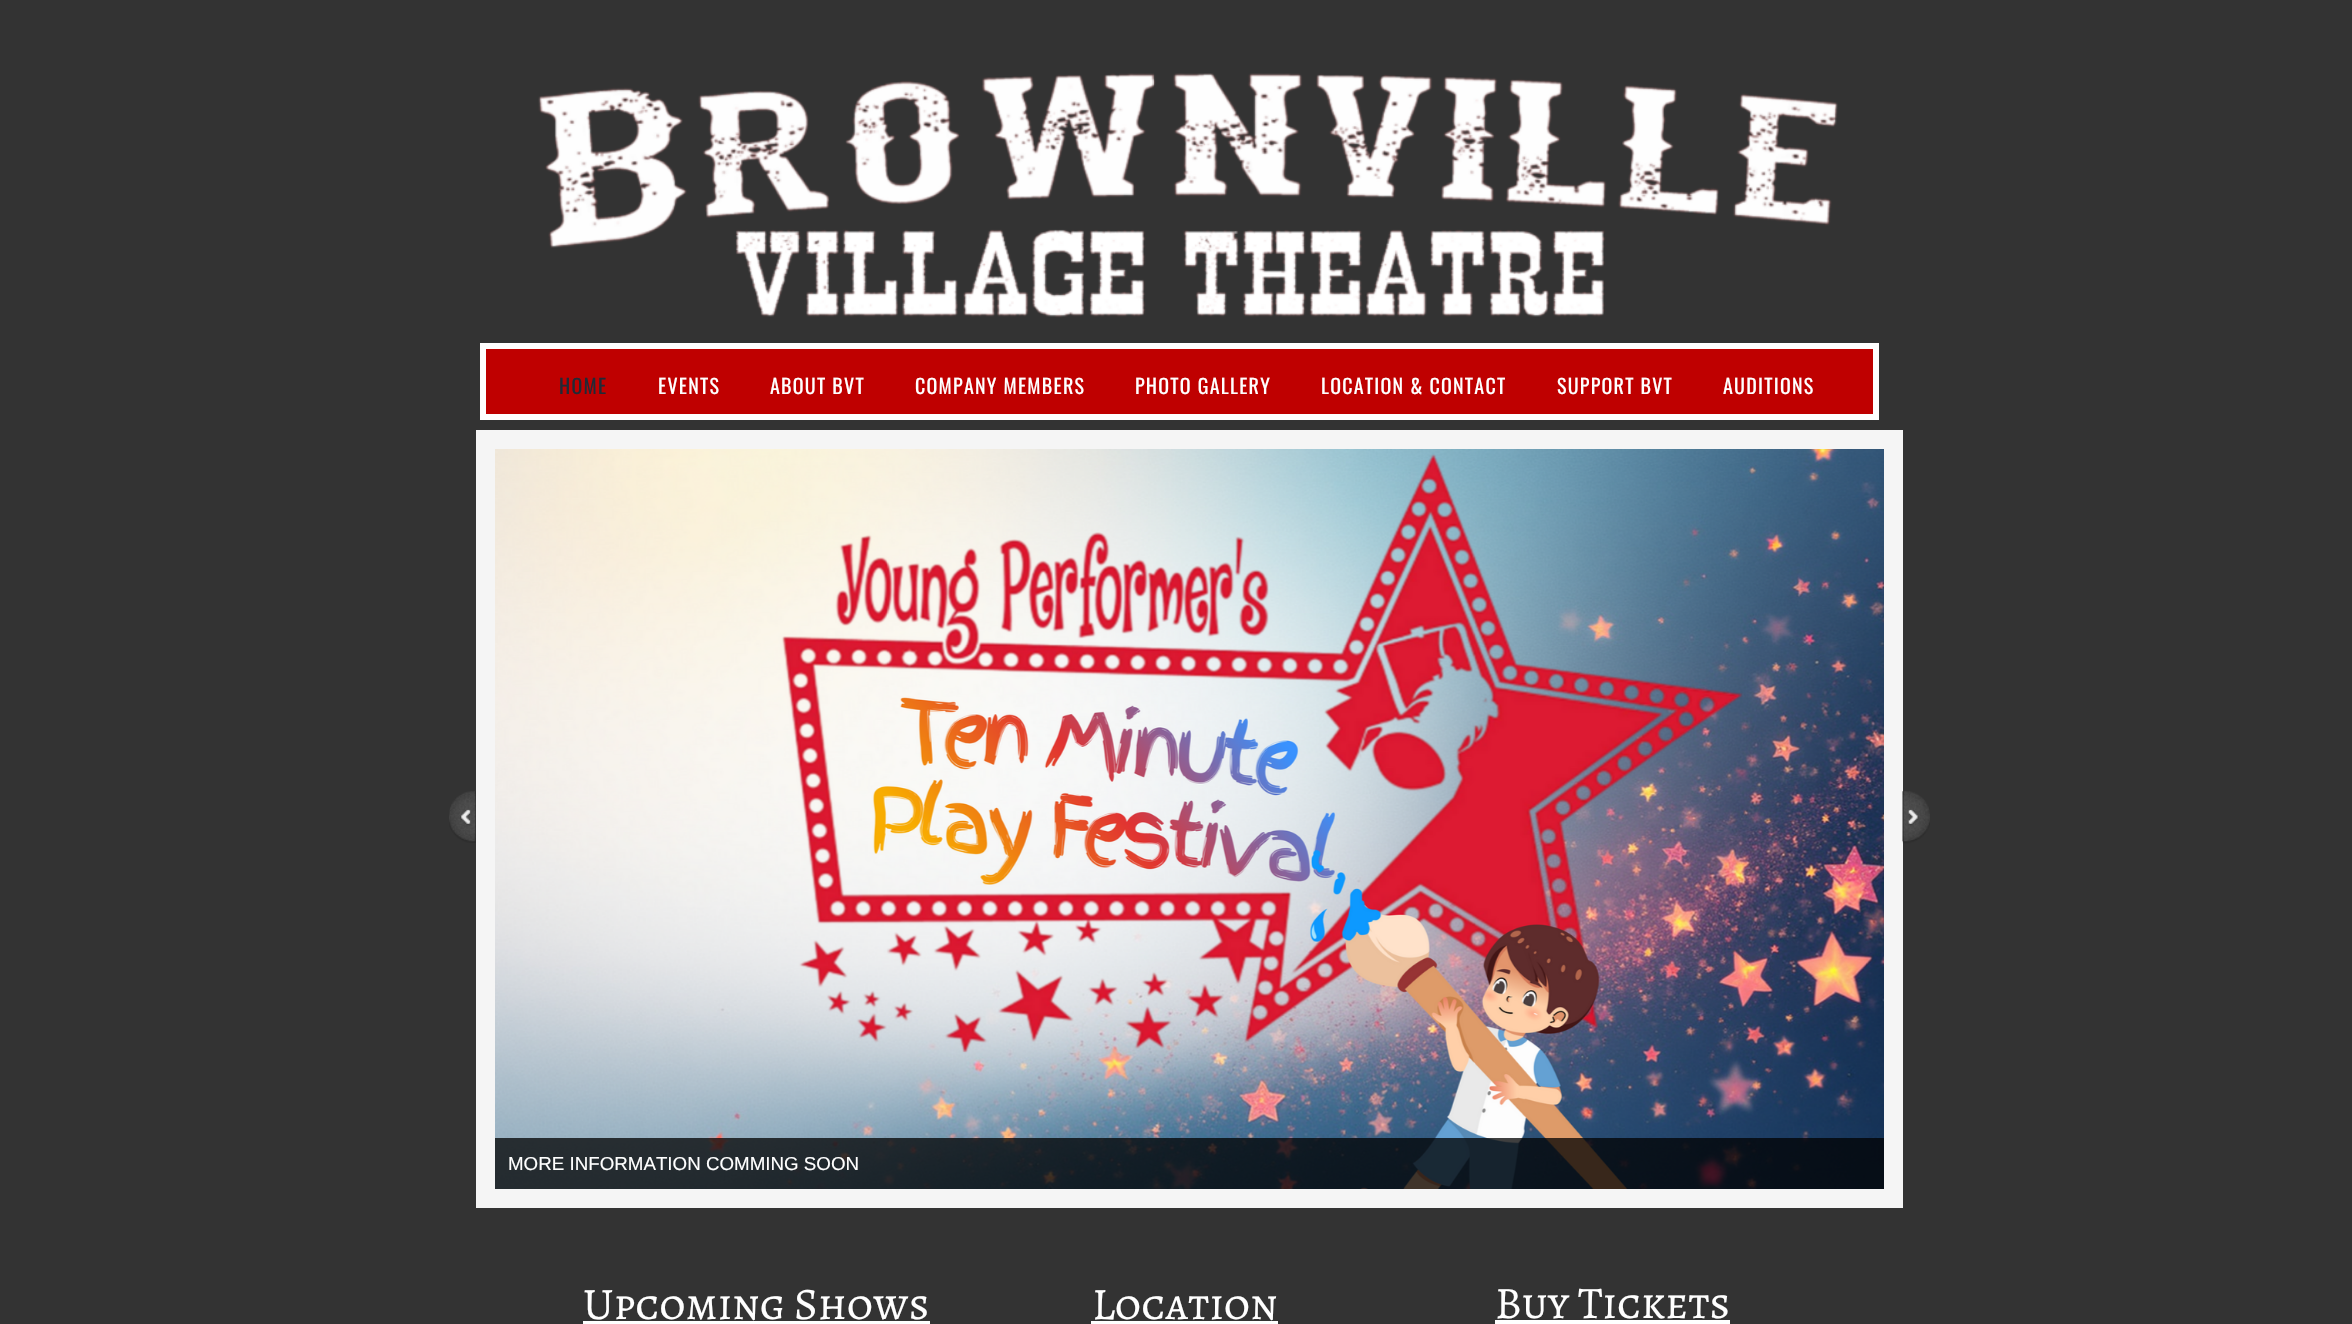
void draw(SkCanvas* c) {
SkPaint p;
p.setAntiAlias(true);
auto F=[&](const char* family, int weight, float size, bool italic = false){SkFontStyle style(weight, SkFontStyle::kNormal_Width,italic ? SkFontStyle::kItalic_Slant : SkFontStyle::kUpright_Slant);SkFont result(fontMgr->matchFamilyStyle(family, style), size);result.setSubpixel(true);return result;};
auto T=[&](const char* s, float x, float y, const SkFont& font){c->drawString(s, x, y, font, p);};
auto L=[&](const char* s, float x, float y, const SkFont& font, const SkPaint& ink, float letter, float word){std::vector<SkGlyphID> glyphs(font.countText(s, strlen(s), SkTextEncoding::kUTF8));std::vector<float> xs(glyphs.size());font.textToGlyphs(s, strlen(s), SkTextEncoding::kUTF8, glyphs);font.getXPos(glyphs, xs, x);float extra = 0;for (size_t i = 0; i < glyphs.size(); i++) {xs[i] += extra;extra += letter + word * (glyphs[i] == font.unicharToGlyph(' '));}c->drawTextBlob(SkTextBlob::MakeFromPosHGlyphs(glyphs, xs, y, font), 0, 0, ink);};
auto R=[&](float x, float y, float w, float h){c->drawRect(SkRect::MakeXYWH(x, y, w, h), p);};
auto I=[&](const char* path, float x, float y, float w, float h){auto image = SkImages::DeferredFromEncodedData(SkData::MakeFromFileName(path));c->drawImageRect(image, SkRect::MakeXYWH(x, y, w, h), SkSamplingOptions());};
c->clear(0xff333333);
I("1.png",538,73,1300,245);
p.setColor(0xffbf0000);
c->drawRect(SkRect::MakeXYWH(483,346,1393,71),p);
p.setStroke(true);
p.setStrokeWidth(6);
p.setColor(0xffffffff);
c->drawRect(SkRect::MakeXYWH(483,346,1393,71),p);
auto f1 = F("Oswald",400,20);
p.setStroke(false);
p.setColor(0xff212a36);
L("HOME",559,394,f1,p,1.25,0);
p.setColor(0xffffffff);
L("EVENTS",658,394,f1,p,1.25,0);
L("ABOUT BVT",770,394,f1,p,1.25,0);
L("COMPANY MEMBERS",915,394,f1,p,1.25,0);
L("PHOTO GALLERY",1135,394,f1,p,1.25,0);
L("LOCATION & CONTACT",1321,394,f1,p,1.25,0);
L("SUPPORT BVT",1557,394,f1,p,1.25,0);
L("AUDITIONS",1723,394,f1,p,1.25,0);
I("2.png",449,791,27,52);
p.setStroke(true);
p.setStrokeWidth(19);
p.setColor(0xfff5f5f5);
c->drawRect(SkRect::MakeXYWH(485.5,439.5,1408,759),p);
I("3.png",1902,791,28,53);
I("4.png",495,449,1389,740);
p.setStroke(false);
p.setColor(0xbf000000);
R(495,1138,1389,51);
auto f2 = F("Liberation Sans",400,18.75);
p.setColor(0xffffffff);
T("MORE INFORMATION COMMING SOON",508,1170,f2);
auto f3 = F("Alegreya SC",400,45);
T("Upcoming Shows",583,1319,f3);
R(583,1321,347,3);
T("Location",1092,1319,f3);
R(1091,1321,187,3);
T("Buy Tickets",1495,1318,f3);
R(1495,1320,235,4);
}
